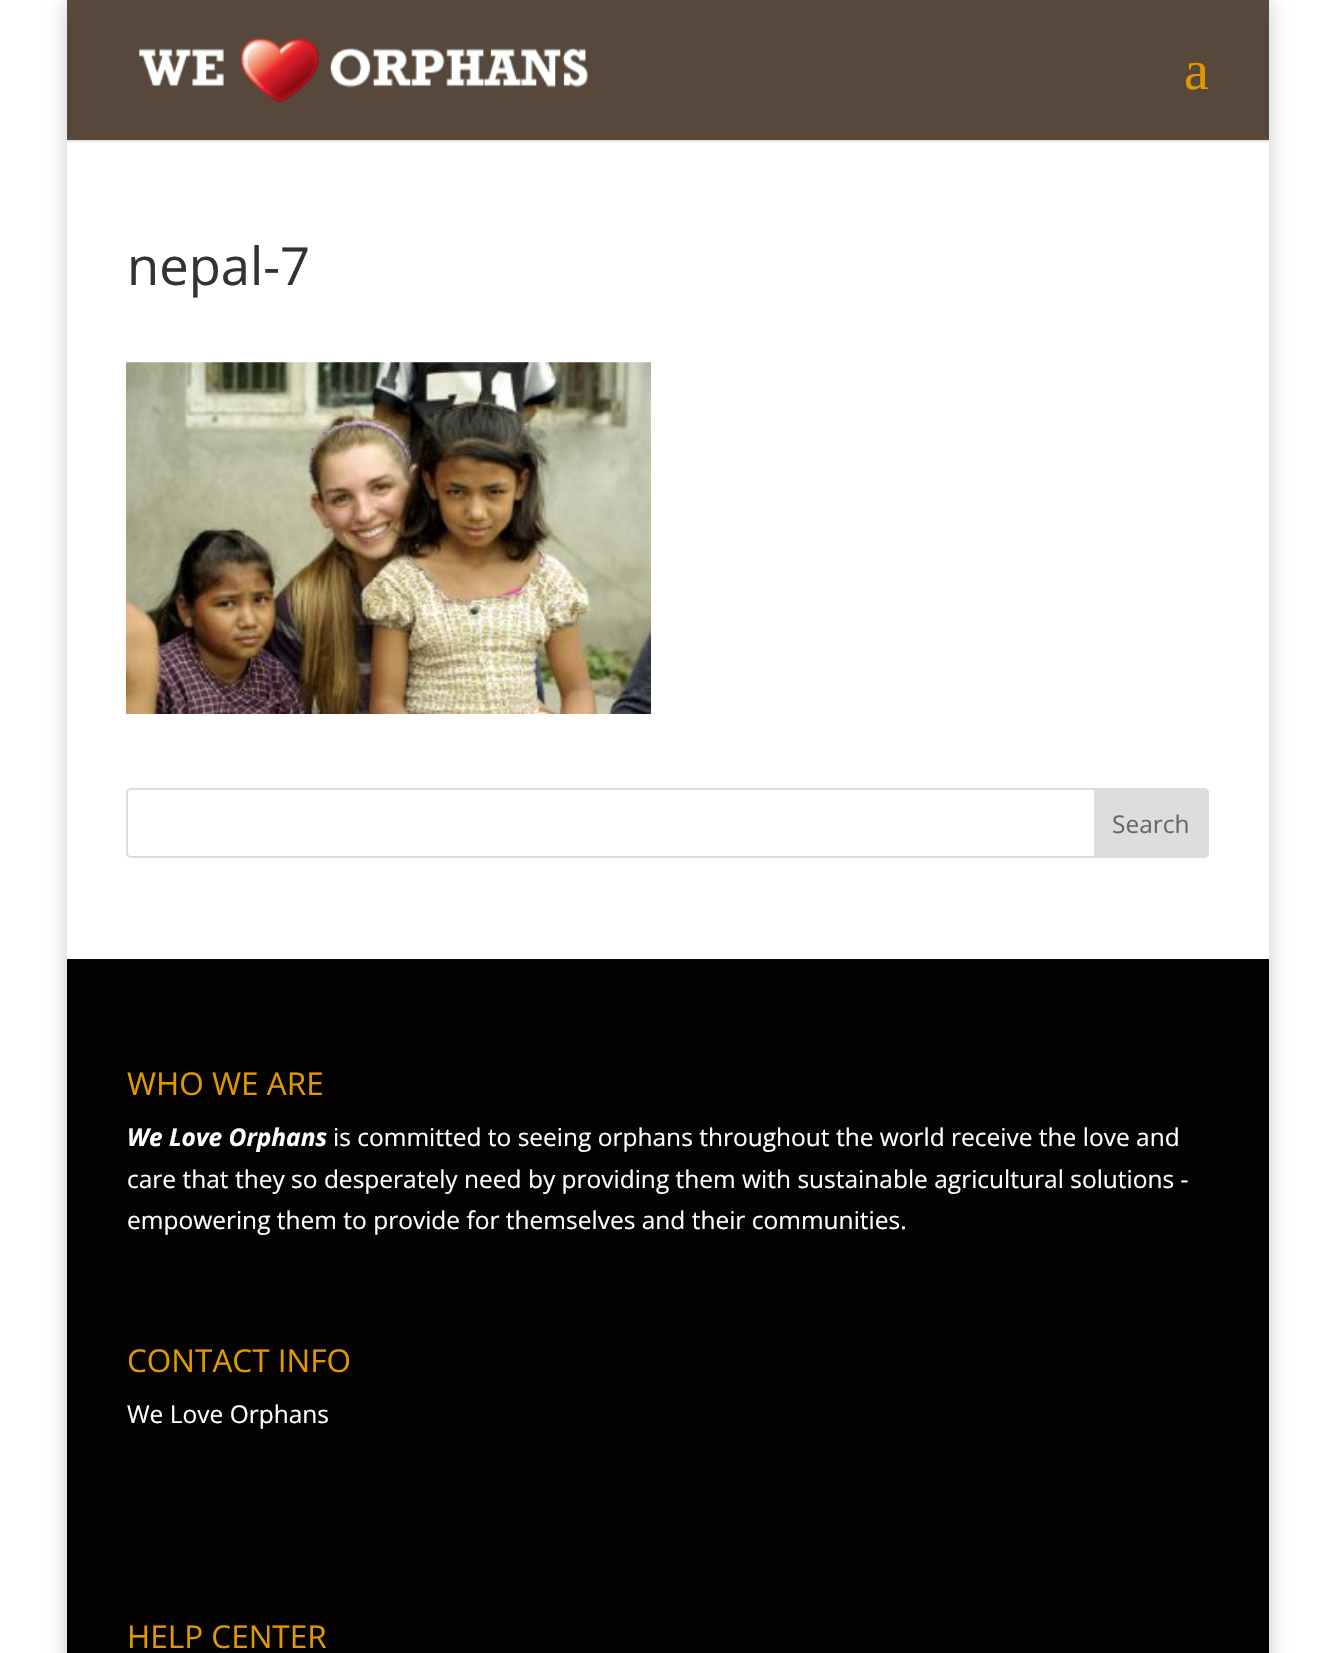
void draw(SkCanvas* c) {
SkPaint p;
p.setAntiAlias(true);
auto F=[&](const char* family, int weight, float size, bool italic = false){SkFontStyle style(weight, SkFontStyle::kNormal_Width,italic ? SkFontStyle::kItalic_Slant : SkFontStyle::kUpright_Slant);SkFont result(fontMgr->matchFamilyStyle(family, style), size);result.setSubpixel(true);return result;};
auto T=[&](const char* s, float x, float y, const SkFont& font){c->drawString(s, x, y, font, p);};
auto R=[&](float x, float y, float w, float h){c->drawRect(SkRect::MakeXYWH(x, y, w, h), p);};
auto I=[&](const char* path, float x, float y, float w, float h){auto image = SkImages::DeferredFromEncodedData(SkData::MakeFromFileName(path));c->drawImageRect(image, SkRect::MakeXYWH(x, y, w, h), SkSamplingOptions());};
auto P=[&](const char* data, bool evenOdd = false){SkPath result = *SkParsePath::FromSVGString(data);if (evenOdd) result.setFillType(SkPathFillType::kEvenOdd);return result;};
c->clear(0xffffffff);
p.setColor(0x33000000);
p.setMaskFilter(SkMaskFilter::MakeBlur(kNormal_SkBlurStyle, 9));
c->drawRect(SkRect::MakeXYWH(67,0,1202,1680),p);
p.setMaskFilter(nullptr);
p.setColor(0xffe6e6e6);
c->drawPath(P("M67 140v2h1202v-140v138z"),p);
p.setColor(0xff58483c);
R(67,0,1202,140);
I("1.png",139,38,450,65);
auto f1 = F("Liberation Serif",400,56);
p.setColor(0xffe09900);
T("a",1184,89,f1);
p.setColor(0xffffffff);
R(67,142,1202,817);
auto f2 = F("Open Sans",400,52.5);
p.setColor(0xff333333);
T("nepal-7",127,285,f2);
I("2.png",126,362,525,352);
p.setStroke(true);
p.setStrokeWidth(2);
p.setColor(0xffdddddd);
c->drawRoundRect(SkRect::MakeXYWH(127,789,1081,68),4,4,p);
p.setStroke(false);
c->drawPath(P("M1095 789h109c2 0 4 2 4 4v60c0 2-2 4-4 4h-109z"),p);
p.setStroke(true);
c->drawPath(P("M1095 789h109c2 0 4 2 4 4v60c0 2-2 4-4 4h-109z"),p);
auto f3 = F("Open Sans",400,24.5);
p.setStroke(false);
p.setColor(0xff666666);
T("Search",1112,833,f3);
p.setColor(0xff050302);
R(67,959,1202,694);
auto f4 = F("Open Sans",400,31.5);
p.setColor(0xffe09900);
T("WHO WE ARE",127,1095,f4);
auto f5 = F("Open Sans",700,24.5,true);
p.setColor(0xffffffff);
T("We Love Orphans",127,1146,f5);
T("is committed to seeing orphans throughout the world receive the love and",333,1146,f3);
T("care that they so desperately need by providing them with sustainable agricultural solutions -",127,1188,f3);
T("empowering them to provide for themselves and their communities.",127,1229,f3);
p.setColor(0xffe09900);
T("CONTACT INFO",127,1372,f4);
p.setColor(0xffffffff);
T("We Love Orphans",127,1423,f3);
p.setColor(0xffe09900);
T("HELP CENTER",127,1648,f4);
}
